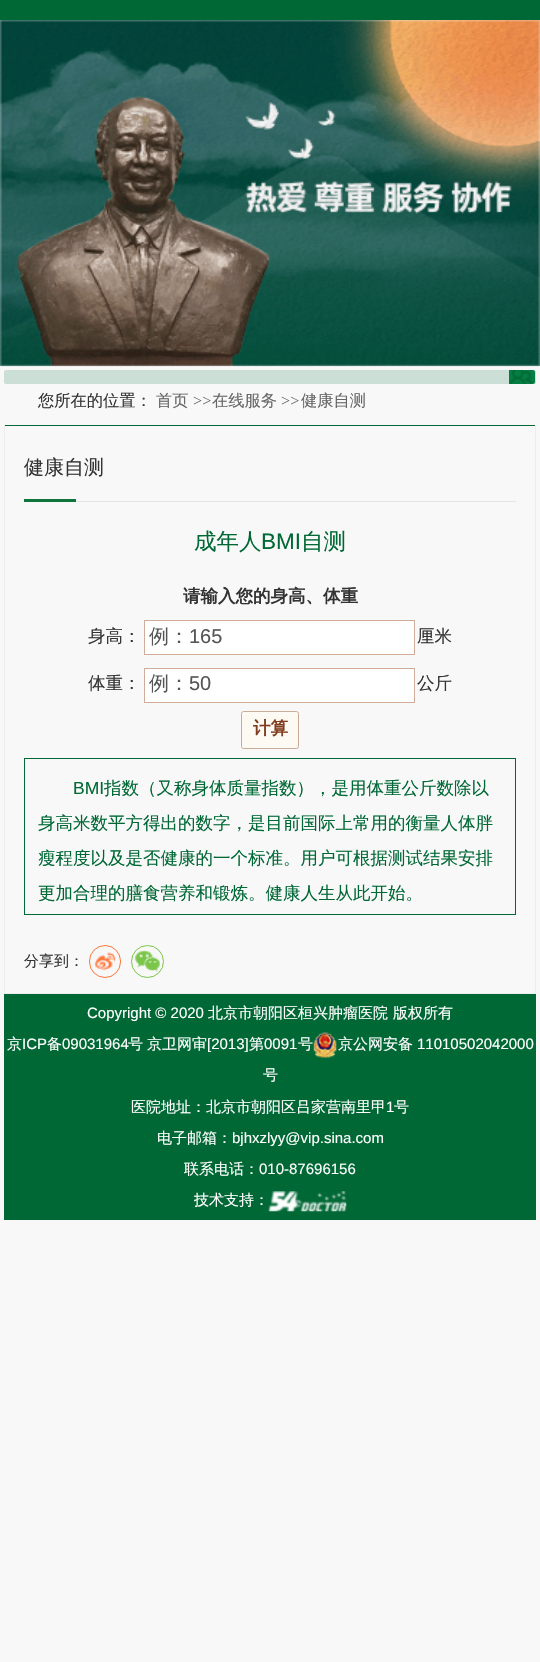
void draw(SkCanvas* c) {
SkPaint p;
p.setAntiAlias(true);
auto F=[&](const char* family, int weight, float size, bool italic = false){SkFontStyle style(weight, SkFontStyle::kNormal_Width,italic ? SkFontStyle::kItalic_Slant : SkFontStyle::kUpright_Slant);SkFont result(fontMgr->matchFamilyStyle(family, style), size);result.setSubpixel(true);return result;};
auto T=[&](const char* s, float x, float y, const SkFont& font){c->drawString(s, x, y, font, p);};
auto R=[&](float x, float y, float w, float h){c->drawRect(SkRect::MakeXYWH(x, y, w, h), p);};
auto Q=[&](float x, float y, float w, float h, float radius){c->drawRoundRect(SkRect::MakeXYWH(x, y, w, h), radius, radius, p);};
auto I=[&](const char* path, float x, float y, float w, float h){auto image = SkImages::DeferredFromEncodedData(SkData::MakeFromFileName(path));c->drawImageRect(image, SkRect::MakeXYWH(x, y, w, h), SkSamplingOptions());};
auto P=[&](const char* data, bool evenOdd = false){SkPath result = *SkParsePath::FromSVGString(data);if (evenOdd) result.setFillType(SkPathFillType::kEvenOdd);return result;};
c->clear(0xfff8f8f8);
p.setColor(0xff006835);
R(0,0,540,20);
I("1.png",0,20,540,347);
p.setColor(0xffccdfd6);
Q(4,370,532,14,2);
p.setColor(0xff047e43);
c->drawPath(P("M509 370h24c1 0 2 1 2 2v10c0 1-1 2-2 2h-24z"),p);
I("2.png",510,370,23,14);
auto f1 = F("WenQuanYi Zen Hei",500,16.25);
p.setColor(0xff333333);
T("您所在的位置：",38,406,f1);
p.setColor(0xff666666);
T("首页",156,406,f1);
auto f2 = F("Liberation Serif",400,16.25);
T(">>",193,406,f2);
T("在线服务",212,406,f1);
T(">>",281,406,f2);
T("健康自测",301,406,f1);
p.setColor(0xff006835);
R(4,425,532,1);
p.setColor(0xffededed);
R(535,425,1,569);
R(4,993,532,1);
R(4,425,1,569);
p.setColor(0xffe4e4e4);
R(76,501,440,1);
auto f3 = F("WenQuanYi Zen Hei",500,20);
p.setColor(0xff333333);
T("健康自测",24,474,f3);
p.setColor(0xff10753d);
R(24,499,52,3);
auto f4 = F("WenQuanYi Zen Hei",500,22.5);
p.setColor(0xff006835);
T("成年人",194,549,f4);
auto f5 = F("Liberation Sans",400,22.5);
T("BMI",261,549,f5);
T("自测",301,549,f4);
auto f6 = F("WenQuanYi Zen Hei",700,17.5);
p.setColor(0xff333333);
T("请输入您的身高、体重",183,602,f6);
auto f7 = F("WenQuanYi Zen Hei",500,17.5);
T("身高：",88,642,f7);
p.setColor(0xffffffff);
c->drawRect(SkRect::MakeXYWH(144.5,620.5,270,34),p);
p.setStroke(true);
p.setStrokeWidth(1);
p.setColor(0xffd0ad9a);
c->drawRect(SkRect::MakeXYWH(144.5,620.5,270,34),p);
p.setStroke(false);
p.setColor(0xff555555);
T("例：",149,643,f3);
auto f8 = F("Liberation Sans",400,20);
T("165",189,643,f8);
p.setColor(0xff333333);
T("厘米",417,642,f7);
T("体重：",88,689,f7);
p.setColor(0xffffffff);
c->drawRect(SkRect::MakeXYWH(144.5,668.5,270,34),p);
p.setStroke(true);
p.setColor(0xffd0ad9a);
c->drawRect(SkRect::MakeXYWH(144.5,668.5,270,34),p);
p.setStroke(false);
p.setColor(0xff555555);
T("例：",149,690,f3);
T("50",189,690,f8);
p.setColor(0xff333333);
T("公斤",417,689,f7);
p.setColor(0xfffdfaf3);
c->drawRoundRect(SkRect::MakeXYWH(241.5,711.5,57,37),2,2,p);
p.setStroke(true);
p.setColor(0xffcaab96);
c->drawRoundRect(SkRect::MakeXYWH(241.5,711.5,57,37),2,2,p);
p.setStroke(false);
p.setColor(0xff813d20);
T("计算",253,734,f6);
p.setStroke(true);
p.setColor(0xff006835);
c->drawRect(SkRect::MakeXYWH(24.5,758.5,491,156),p);
auto f9 = F("Liberation Sans",400,17.5);
p.setStroke(false);
T("BMI",73,794,f9);
T("指数（又称身体质量指数），是用体重公斤数除以",104,794,f7);
T("身高米数平方得出的数字，是目前国际上常用的衡量人体胖",38,829,f7);
T("瘦程度以及是否健康的一个标准。用户可根据测试结果安排",38,864,f7);
T("更加合理的膳食营养和锻炼。健康人生从此开始。",38,899,f7);
auto f10 = F("WenQuanYi Zen Hei",500,15);
p.setColor(0xff333333);
T("分享到：",24,966,f10);
I("3.png",94,952,22,19);
p.setStroke(true);
p.setColor(0xffff763b);
c->drawRoundRect(SkRect::MakeXYWH(89.5,945.5,31,32),15.5,15.5,p);
I("4.png",135,950,25,23);
p.setColor(0xff7bc549);
c->drawCircle(147.5,961.5,16,p);
p.setStroke(false);
p.setColor(0xff006835);
R(4,994,532,226);
auto f11 = F("Liberation Sans",400,15);
p.setColor(0xffffffff);
T("Copyright © 2020",87,1018,f11);
T("北京市朝阳区桓兴肿瘤医院",208,1018,f10);
T("版权所有",393,1018,f10);
T("京",7,1049,f10);
T("ICP",22,1049,f11);
T("备",47,1049,f10);
T("09031964",62,1049,f11);
T("号",128,1049,f10);
T("京卫网审",147,1049,f10);
T("[2013]",207,1049,f11);
T("第",249,1049,f10);
T("0091",264,1049,f11);
T("号",298,1049,f10);
I("5.png",313,1032,24,26);
T("京公网安备",338,1049,f10);
T("11010502042000",417,1049,f11);
T("号",263,1080,f10);
T("医院地址：北京市朝阳区吕家营南里甲",131,1112,f10);
T("1",386,1112,f11);
T("号",394,1112,f10);
T("电子邮箱：",157,1143,f10);
T("bjhxzlyy@vip.sina.com",232,1143,f11);
T("联系电话：",184,1174,f10);
T("010-87696156",259,1174,f11);
T("技术支持：",194,1205,f10);
I("6.png",268,1191,79,21);
}
